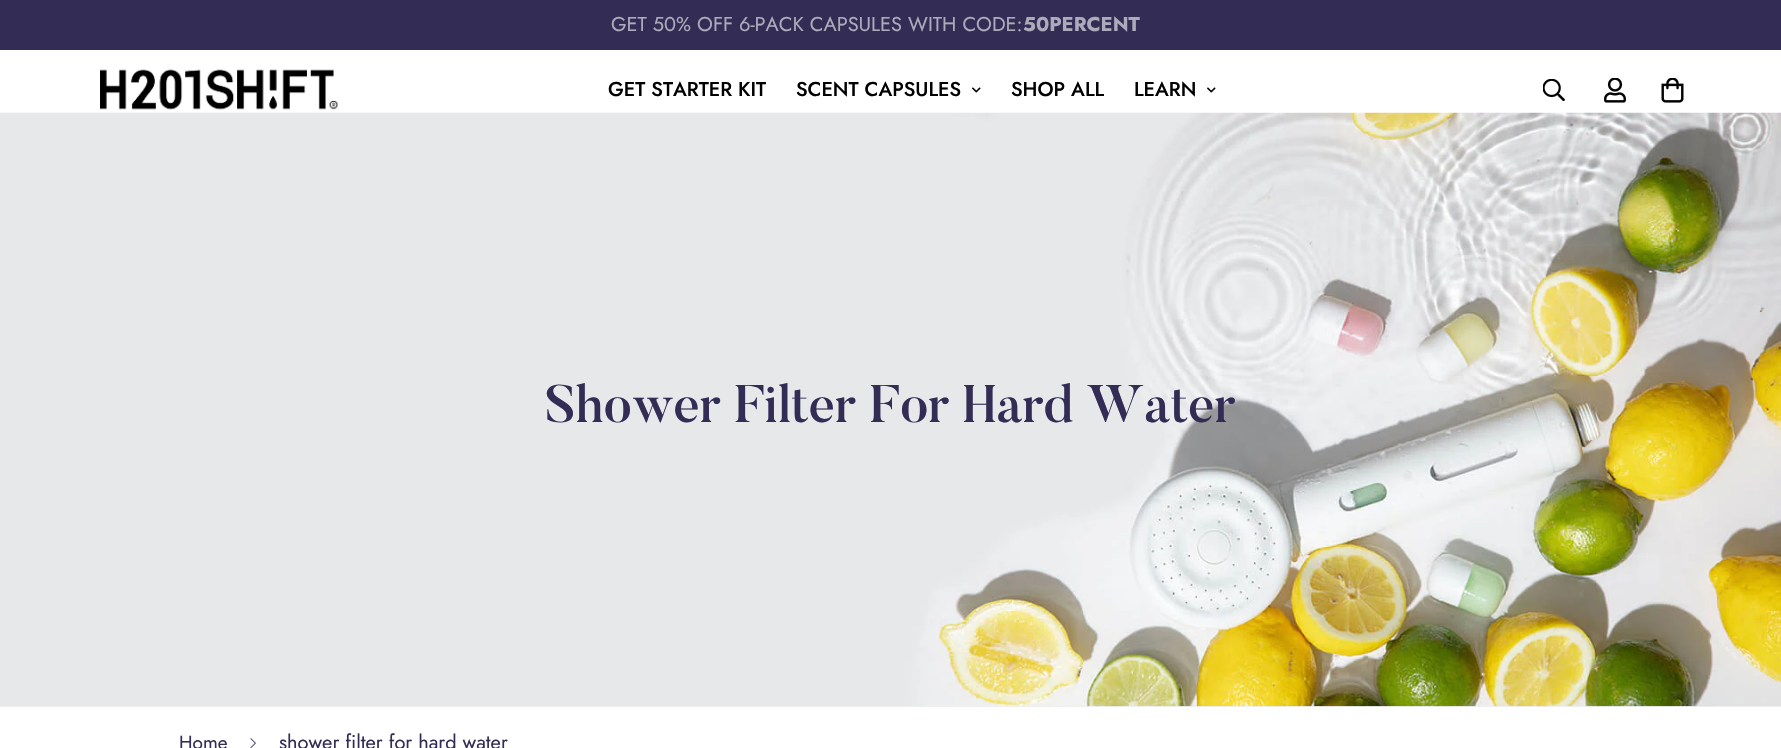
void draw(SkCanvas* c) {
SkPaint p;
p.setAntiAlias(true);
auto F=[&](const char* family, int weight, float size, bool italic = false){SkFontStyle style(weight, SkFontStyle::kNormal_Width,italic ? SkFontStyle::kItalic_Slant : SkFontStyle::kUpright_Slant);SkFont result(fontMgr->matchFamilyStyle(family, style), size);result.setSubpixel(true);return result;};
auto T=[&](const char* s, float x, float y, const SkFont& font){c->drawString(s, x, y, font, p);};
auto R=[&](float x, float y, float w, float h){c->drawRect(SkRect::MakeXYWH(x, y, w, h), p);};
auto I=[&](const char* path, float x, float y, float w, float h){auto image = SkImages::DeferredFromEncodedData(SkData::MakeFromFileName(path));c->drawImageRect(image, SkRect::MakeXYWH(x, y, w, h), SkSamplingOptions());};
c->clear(0xffffffff);
p.setColor(0xff332d55);
R(0,0,1781,50);
auto f1 = F("Jost",400,20);
p.setColor(0xffadabbb);
T("GET 50% OFF 6-PACK CAPSULES WITH CODE:",611,31,f1);
auto f2 = F("Jost",700,20);
T("50PERCENT",1023,31,f2);
I("1.png",100,69,238,41);
auto f3 = F("Jost",500,20);
p.setColor(0xff000000);
T("GET STARTER KIT",608,96,f3);
T("SCENT CAPSULES",796,96,f3);
I("2.png",972,87,9,6);
T("SHOP ALL",1011,96,f3);
T("LEARN",1134,96,f3);
I("2.png",1207,87,9,6);
I("3.png",1543,79,22,22);
I("4.png",1604,78,22,25);
I("5.png",1661,78,23,25);
p.setColor(0xffeeeeee);
R(0,706,1781,1);
I("6.png",0,112,1781,595);
auto f4 = F("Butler",500,52.5);
p.setColor(0xff332d55);
T("Shower Filter For Hard Water",545,422,f4);
auto f5 = F("Jost",400,19);
T("Home",179,749,f5);
I("7.png",250,738,6,10);
T("shower filter for hard water",279,749,f1);
}
